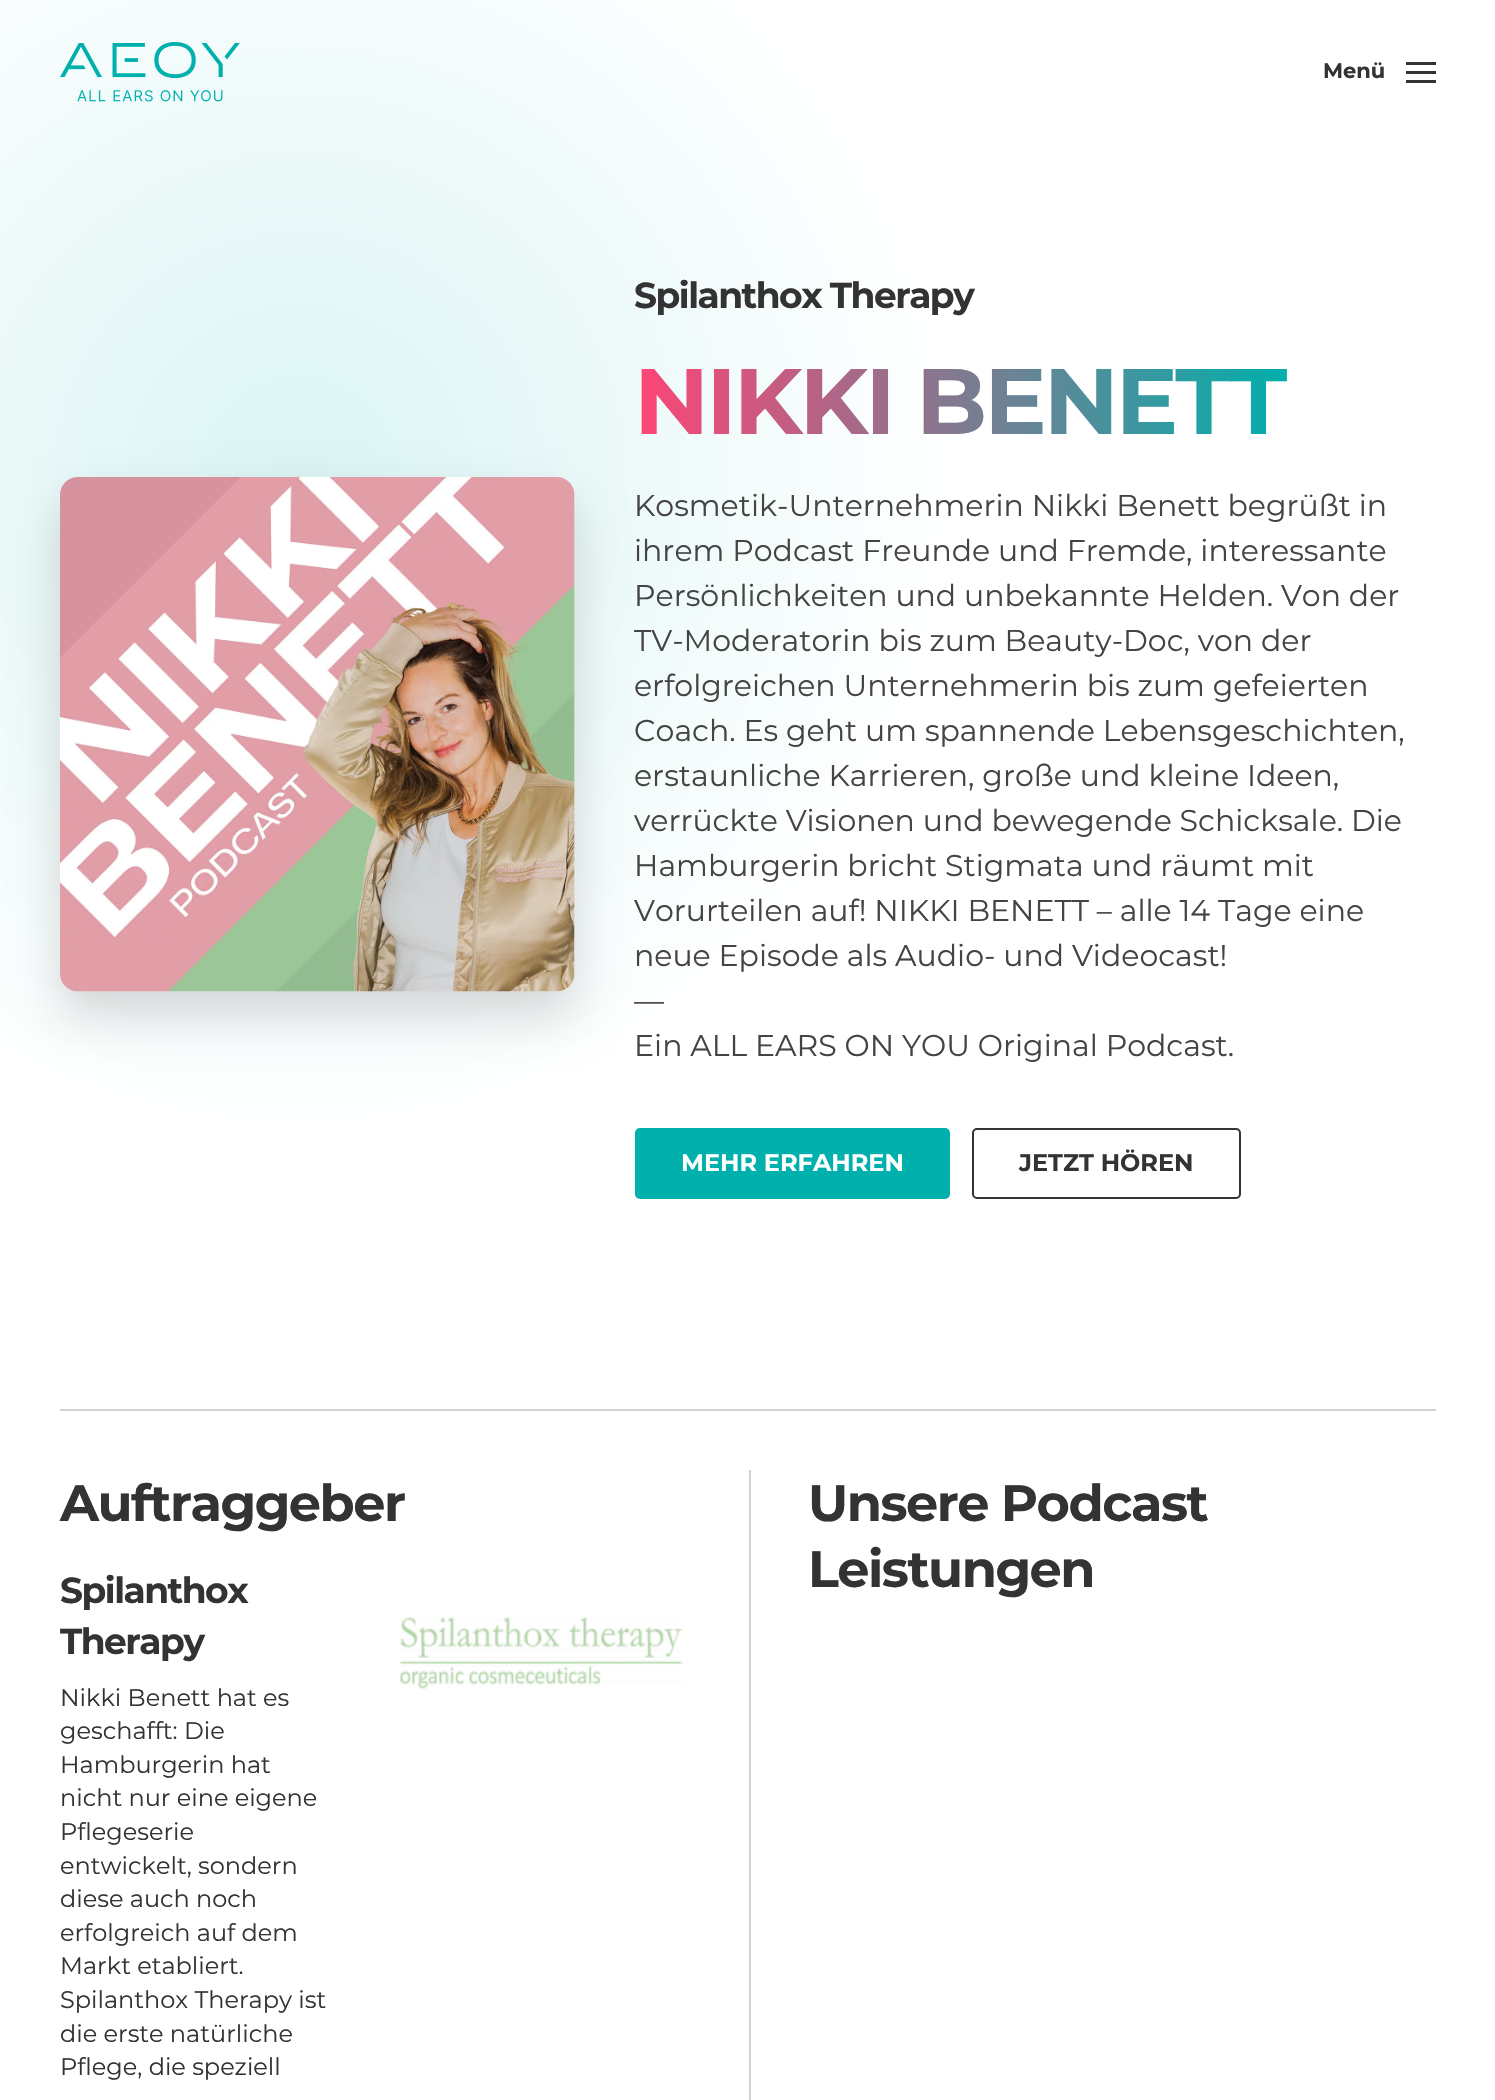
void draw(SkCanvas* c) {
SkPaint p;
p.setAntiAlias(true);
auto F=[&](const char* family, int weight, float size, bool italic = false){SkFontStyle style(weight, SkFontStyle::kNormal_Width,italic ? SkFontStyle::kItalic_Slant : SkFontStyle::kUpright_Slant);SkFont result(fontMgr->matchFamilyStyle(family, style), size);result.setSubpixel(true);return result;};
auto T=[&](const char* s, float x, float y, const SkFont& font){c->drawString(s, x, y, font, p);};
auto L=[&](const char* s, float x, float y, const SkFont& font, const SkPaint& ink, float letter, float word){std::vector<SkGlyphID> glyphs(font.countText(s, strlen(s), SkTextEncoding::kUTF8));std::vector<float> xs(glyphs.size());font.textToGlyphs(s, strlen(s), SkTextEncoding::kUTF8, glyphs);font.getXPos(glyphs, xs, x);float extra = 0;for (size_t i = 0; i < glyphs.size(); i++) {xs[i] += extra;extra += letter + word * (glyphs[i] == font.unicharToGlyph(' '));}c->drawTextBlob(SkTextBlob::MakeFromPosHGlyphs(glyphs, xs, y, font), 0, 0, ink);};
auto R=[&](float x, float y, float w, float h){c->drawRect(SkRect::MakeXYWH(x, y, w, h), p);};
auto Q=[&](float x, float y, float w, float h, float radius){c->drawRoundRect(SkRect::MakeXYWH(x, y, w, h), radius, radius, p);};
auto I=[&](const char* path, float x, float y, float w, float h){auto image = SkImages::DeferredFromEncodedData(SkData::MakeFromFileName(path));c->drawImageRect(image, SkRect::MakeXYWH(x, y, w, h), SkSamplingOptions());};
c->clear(0xffffffff);
{
const SkColor colors[] = {0xffdbf4f4,0xffffffff};
const float stops[] = {0,1};
p.setShader(SkGradientShader::MakeRadial({299,477}, 657, colors, stops, 2, SkTileMode::kClamp));
p.setAlpha(255);
}
c->drawCircle(299,478,688,p);
I("1.png",60,42,180,60);
auto f1 = F("Montserrat",100,21);
p.setShader(nullptr);
p.setColor(0xff333333);
T("Menü",1323,78,f1);
R(1406,62,30,3);
R(1406,71,30,3);
R(1406,80,30,3);
p.setColor(0x26000000);
p.setMaskFilter(SkMaskFilter::MakeBlur(kNormal_SkBlurStyle, 24));
c->drawRoundRect(SkRect::MakeXYWH(60,501,515,515),18,18,p);
p.setMaskFilter(nullptr);
I("2.png",60,477,515,515);
auto f2 = F("Montserrat",100,36);
p.setColor(0xff333333);
L("Spilanthox Therapy",634,308,f2,p,-1.5,0);
auto f3 = F("Montserrat",100,93);
{
const SkColor colors[] = {0xfffd4576,0xff00b0ac};
const float stops[] = {0,1};
const SkPoint ends[] = {{634,402}, {1292,402}};
p.setShader(SkGradientShader::MakeLinear(ends, colors, stops, 2, SkTileMode::kClamp));
p.setAlpha(255);
}
L("NIKKI BENETT",634,434,f3,p,-3,0);
auto f4 = F("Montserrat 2",100,30);
p.setShader(nullptr);
p.setColor(0xff444444);
T("Kosmetik-Unternehmerin Nikki Benett begrüßt in",634,516,f4);
T("ihrem Podcast Freunde und Fremde, interessante",634,561,f4);
T("Persönlichkeiten und unbekannte Helden. Von der",634,606,f4);
T("TV-Moderatorin bis zum Beauty-Doc, von der",634,651,f4);
T("erfolgreichen Unternehmerin bis zum gefeierten",634,696,f4);
T("Coach. Es geht um spannende Lebensgeschichten,",634,741,f4);
T("erstaunliche Karrieren, große und kleine Ideen,",634,786,f4);
T("verrückte Visionen und bewegende Schicksale. Die",634,831,f4);
T("Hamburgerin bricht Stigmata und räumt mit",634,876,f4);
T("Vorurteilen auf! NIKKI BENETT – alle 14 Tage eine",634,921,f4);
T("neue Episode als Audio- und Videocast!",634,966,f4);
T("—",634,1011,f4);
T("Ein ALL EARS ON YOU Original Podcast.",634,1056,f4);
p.setColor(0xff00b0ac);
Q(635,1128,315,71,5);
auto f5 = F("Montserrat",100,24);
p.setColor(0xffffffff);
T("MEHR ERFAHREN",681,1171,f5);
p.setStroke(true);
p.setStrokeWidth(2);
p.setColor(0xff333333);
c->drawRoundRect(SkRect::MakeXYWH(973,1129,267,69),4,4,p);
p.setStroke(false);
T("JETZT HÖREN",1019,1171,f5);
p.setColor(0xffd1d1d1);
R(60,1409,1376,2);
auto f6 = F("Montserrat",100,51);
p.setColor(0xff333333);
L("Auftraggeber",60,1521,f6,p,-1.5,0);
L("Spilanthox",60,1603,f2,p,-1.5,0);
L("Therapy",60,1654,f2,p,-1.5,0);
auto f7 = F("Montserrat 2",100,24);
T("Nikki Benett hat es",60,1706,f7);
T("geschafft: Die",60,1739,f7);
T("Hamburgerin hat",60,1773,f7);
T("nicht nur eine eigene",60,1806,f7);
T("Pflegeserie",60,1840,f7);
T("entwickelt, sondern",60,1874,f7);
T("diese auch noch",60,1907,f7);
T("erfolgreich auf dem",60,1941,f7);
T("Markt etabliert.",60,1974,f7);
T("Spilanthox Therapy ist",60,2008,f7);
T("die erste natürliche",60,2042,f7);
T("Pflege, die speziell",60,2075,f7);
I("3.png",400,1617,283,73);
p.setColor(0xffd1d1d1);
R(749,1470,2,630);
p.setColor(0xff333333);
L("Unsere Podcast",808,1521,f6,p,-1.5,0);
L("Leistungen",808,1587,f6,p,-1.5,0);
}
